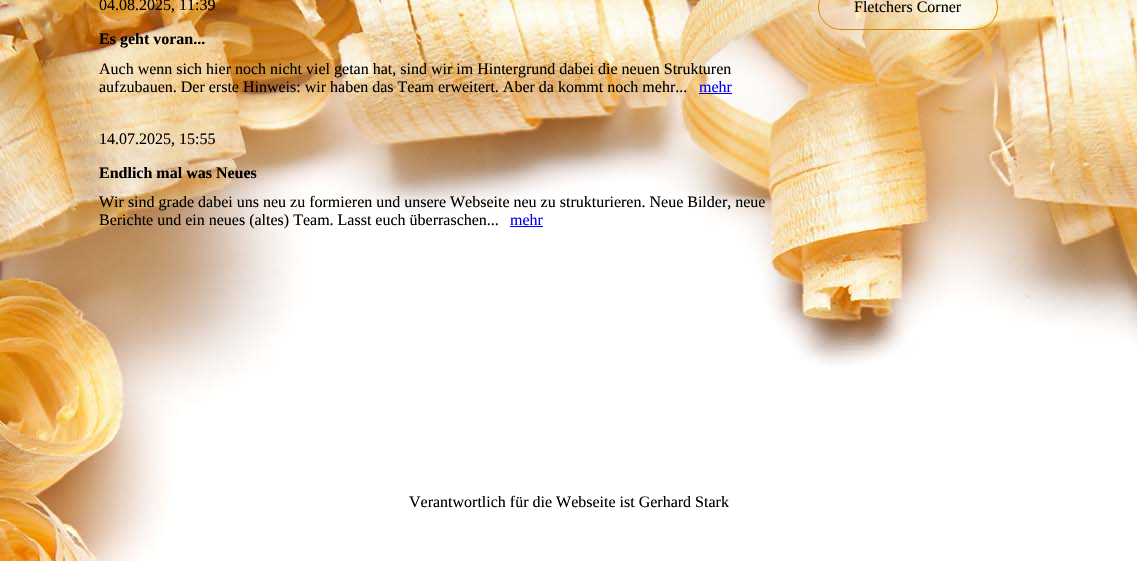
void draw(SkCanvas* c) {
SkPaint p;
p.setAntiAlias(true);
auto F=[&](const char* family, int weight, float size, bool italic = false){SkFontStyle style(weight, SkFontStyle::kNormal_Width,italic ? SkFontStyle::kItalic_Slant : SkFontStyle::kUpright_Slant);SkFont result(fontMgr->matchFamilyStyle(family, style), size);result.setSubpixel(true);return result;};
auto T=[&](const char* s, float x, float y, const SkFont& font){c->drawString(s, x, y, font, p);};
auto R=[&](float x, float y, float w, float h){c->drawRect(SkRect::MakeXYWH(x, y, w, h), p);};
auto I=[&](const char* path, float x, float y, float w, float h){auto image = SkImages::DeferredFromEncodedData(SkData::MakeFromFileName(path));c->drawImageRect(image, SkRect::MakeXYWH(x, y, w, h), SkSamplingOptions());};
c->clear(0xffffffff);
I("1.png",0,0,1137,561);
auto f1 = F("Liberation Serif",400,16);
p.setColor(0xff000000);
T("04.08.2025, 11:39",99,10,f1);
auto f2 = F("Liberation Serif",700,16);
T("Es geht voran...",99,44,f2);
T("Auch wenn sich hier noch nicht viel getan hat, sind wir im Hintergrund dabei die neuen Strukturen",99,74,f1);
T("aufzubauen. Der erste Hinweis: wir haben das Team erweitert. Aber da kommt noch mehr...",99,92,f1);
p.setColor(0xff0000ee);
T("mehr",699,92,f1);
R(699,93,33,1);
p.setColor(0xff000000);
T("14.07.2025, 15:55",99,144,f1);
T("Endlich mal was Neues",99,178,f2);
T("Wir sind grade dabei uns neu zu formieren und unsere Webseite neu zu strukturieren. Neue Bilder, neue",99,207,f1);
T("Berichte und ein neues (altes) Team. Lasst euch überraschen...",99,225,f1);
p.setColor(0xff0000ee);
T("mehr",510,225,f1);
R(510,226,33,1);
p.setStroke(true);
p.setStrokeWidth(1);
p.setColor(0xffd78500);
c->drawRoundRect(SkRect::MakeXYWH(818.5,-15.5,179,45),22.5,22.5,p);
p.setStroke(false);
p.setColor(0xff000000);
T("Fletchers Corner",854,12,f1);
T("Verantwortlich für die Webseite ist Gerhard Stark",409,507,f1);
}
